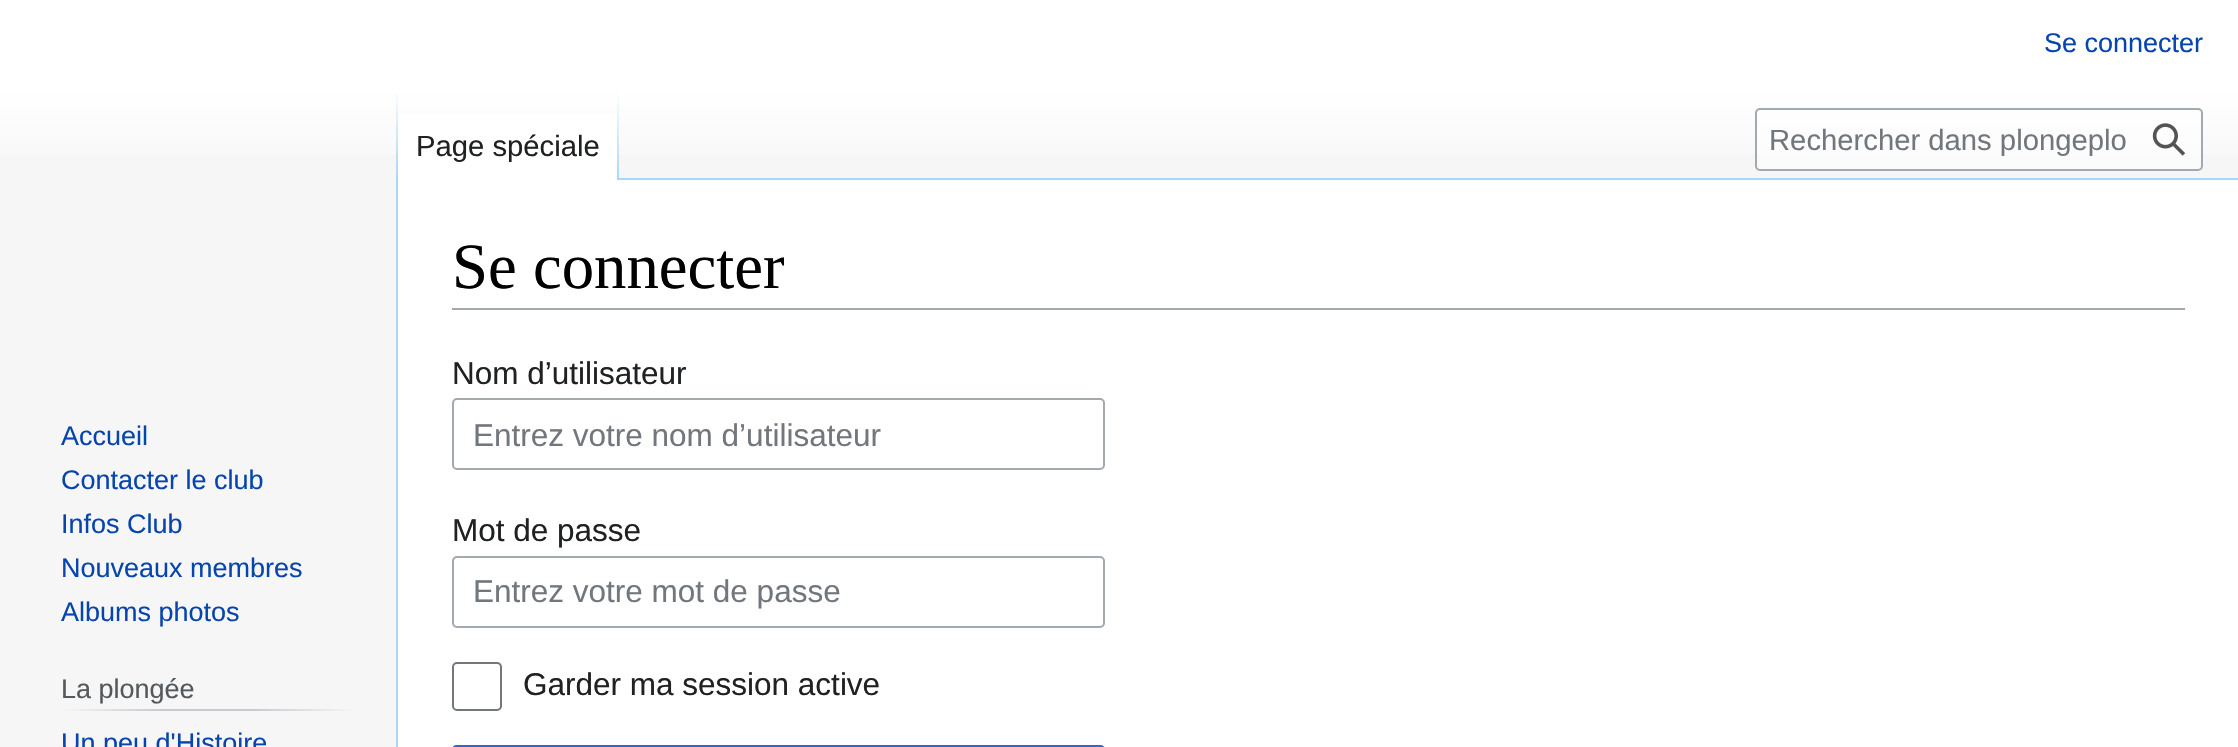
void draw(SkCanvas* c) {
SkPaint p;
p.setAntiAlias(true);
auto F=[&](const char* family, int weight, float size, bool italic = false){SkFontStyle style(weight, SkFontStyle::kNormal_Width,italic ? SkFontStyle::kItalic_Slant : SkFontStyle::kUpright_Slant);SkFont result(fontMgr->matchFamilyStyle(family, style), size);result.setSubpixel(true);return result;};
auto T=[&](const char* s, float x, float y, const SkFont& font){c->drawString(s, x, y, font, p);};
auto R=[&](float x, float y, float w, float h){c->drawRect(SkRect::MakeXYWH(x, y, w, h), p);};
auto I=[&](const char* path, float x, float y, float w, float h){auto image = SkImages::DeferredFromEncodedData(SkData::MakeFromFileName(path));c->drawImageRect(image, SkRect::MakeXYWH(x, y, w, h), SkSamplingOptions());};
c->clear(0xfff6f6f6);
{
const SkColor colors[] = {0xffffffff,0xfff6f6f6};
const float stops[] = {.5,1};
const SkPoint ends[] = {{1119,0}, {1119,180}};
p.setShader(SkGradientShader::MakeLinear(ends, colors, stops, 2, SkTileMode::kClamp));
p.setAlpha(255);
}
R(0,0,2238,155);
auto f1 = F("Liberation Sans",400,27);
p.setShader(nullptr);
p.setColor(0xff0645ad);
T("Se connecter",2044,52,f1);
p.setColor(0xffa7d7f9);
R(396,178,2,569);
{
const SkColor colors[] = {0x00a7d7f9,0xffa7d7f9};
const float stops[] = {0,1};
const SkPoint ends[] = {{397,90}, {397,180}};
p.setShader(SkGradientShader::MakeLinear(ends, colors, stops, 2, SkTileMode::kClamp));
p.setAlpha(255);
}
R(396,90,2,90);
p.setShader(nullptr);
p.setColor(0xffffffff);
R(398,115,219,65);
{
const SkColor colors[] = {0xffffffff,0xffa7d7f9};
const float stops[] = {0,1};
const SkPoint ends[] = {{618,90}, {618,180}};
p.setShader(SkGradientShader::MakeLinear(ends, colors, stops, 2, SkTileMode::kClamp));
p.setAlpha(255);
}
R(617,90,2,90);
auto f2 = F("Liberation Sans",400,29.25);
p.setShader(nullptr);
p.setColor(0xff202122);
T("Page spéciale",416,156,f2);
p.setColor(0x80ffffff);
c->drawRoundRect(SkRect::MakeXYWH(1756,109,446,61),4,4,p);
p.setStroke(true);
p.setStrokeWidth(2);
p.setColor(0xffa2a9b1);
c->drawRoundRect(SkRect::MakeXYWH(1756,109,446,61),4,4,p);
p.setStroke(false);
p.setColor(0xff72777d);
T("Rechercher dans plongeplo",1769,150,f2);
I("1.png",2152,123,34,33);
p.setColor(0xff0645ad);
T("Accueil",61,445,f1);
T("Contacter le club",61,489,f1);
T("Infos Club",61,533,f1);
T("Nouveaux membres",61,577,f1);
T("Albums photos",61,621,f1);
{
const SkColor colors[] = {0xfff6f6f6,0xffc8ccd1,0xffc8ccd1,0xfff6f6f6};
const float stops[] = {0,.33,.66,1};
const SkPoint ends[] = {{61,710}, {356,710}};
p.setShader(SkGradientShader::MakeLinear(ends, colors, stops, 4, SkTileMode::kClamp));
p.setAlpha(255);
}
R(61,709,295,2);
p.setShader(nullptr);
p.setColor(0xff54595d);
T("La plongée",61,698,f1);
p.setColor(0xff0645ad);
T("Un peu d'Histoire",61,752,f1);
p.setColor(0xffffffff);
R(398,180,1840,567);
p.setColor(0xffa7d7f9);
R(619,178,1619,2);
p.setColor(0xffa2a9b1);
R(452,308,1733,2);
auto f3 = F("Liberation Serif",400,64.75);
p.setColor(0xff000000);
T("Se connecter",452,288,f3);
auto f4 = F("Liberation Sans",400,31.5);
p.setColor(0xff202122);
T("Nom d’utilisateur",452,384,f4);
p.setStroke(true);
p.setColor(0xffa2a9b1);
c->drawRoundRect(SkRect::MakeXYWH(453,399,651,70),4,4,p);
p.setStroke(false);
p.setColor(0xff72777d);
T("Entrez votre nom d’utilisateur",473,446,f4);
p.setColor(0xff202122);
T("Mot de passe",452,541,f4);
p.setStroke(true);
p.setColor(0xffa2a9b1);
c->drawRoundRect(SkRect::MakeXYWH(453,557,651,70),4,4,p);
p.setStroke(false);
p.setColor(0xff72777d);
T("Entrez votre mot de passe",473,602,f4);
p.setStroke(true);
c->drawRoundRect(SkRect::MakeXYWH(453,663,48,47),4,4,p);
p.setStroke(false);
p.setColor(0xff202122);
T("Garder ma session active",523,695,f4);
p.setStroke(true);
p.setColor(0xff3366cc);
c->drawRoundRect(SkRect::MakeXYWH(453,746,651,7),4,4,p);
}
